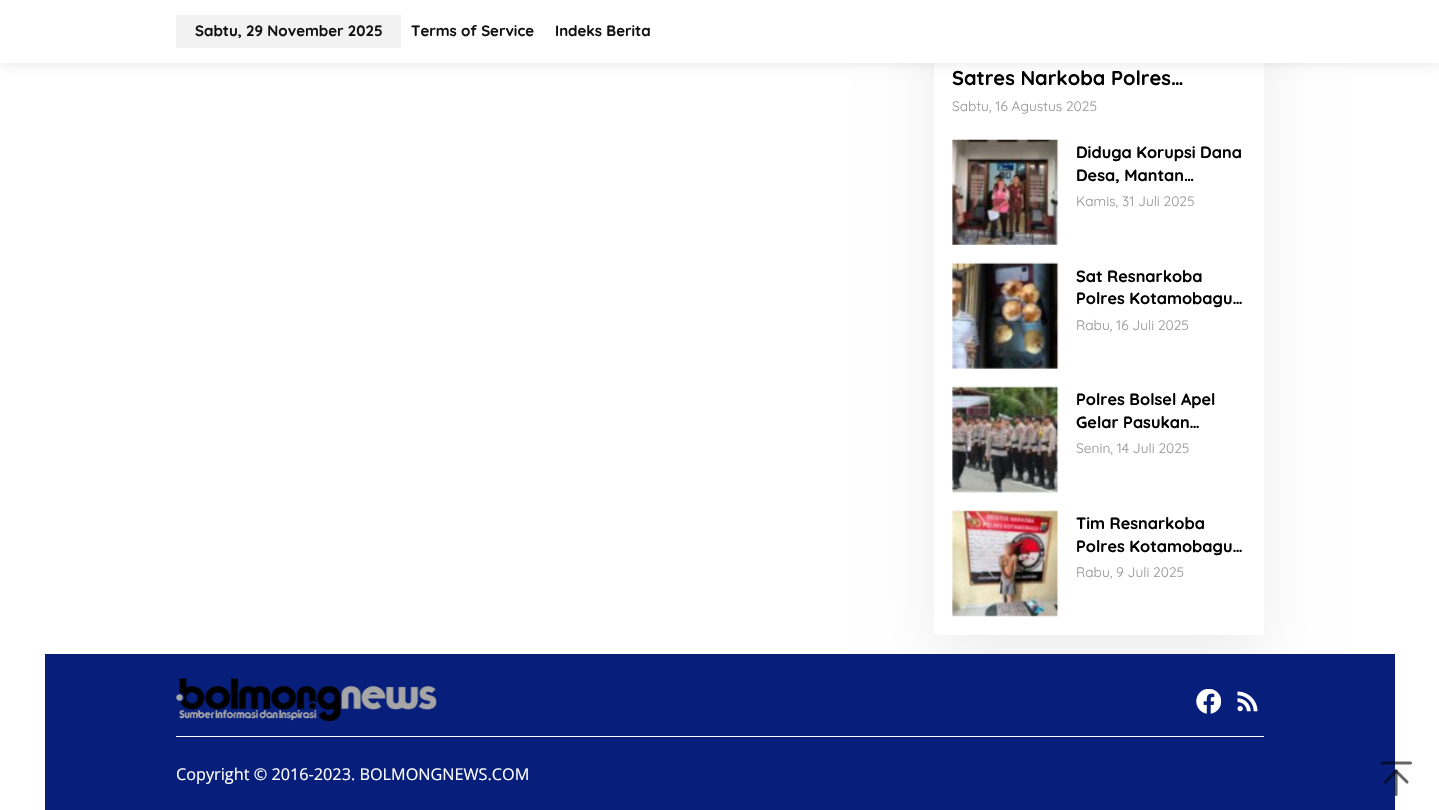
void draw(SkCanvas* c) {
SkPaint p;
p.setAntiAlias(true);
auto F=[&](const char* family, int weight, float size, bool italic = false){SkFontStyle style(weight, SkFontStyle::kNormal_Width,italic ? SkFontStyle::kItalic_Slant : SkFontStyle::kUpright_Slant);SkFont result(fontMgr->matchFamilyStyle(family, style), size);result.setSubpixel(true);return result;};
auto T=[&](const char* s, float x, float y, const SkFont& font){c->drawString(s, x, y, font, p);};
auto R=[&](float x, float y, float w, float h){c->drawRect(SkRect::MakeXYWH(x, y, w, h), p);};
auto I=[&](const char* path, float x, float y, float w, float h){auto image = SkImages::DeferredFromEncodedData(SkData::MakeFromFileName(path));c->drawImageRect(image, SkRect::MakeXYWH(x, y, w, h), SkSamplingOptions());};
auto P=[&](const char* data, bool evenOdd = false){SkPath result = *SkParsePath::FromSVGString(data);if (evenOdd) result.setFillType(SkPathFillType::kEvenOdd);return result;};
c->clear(0xffffffff);
p.setColor(0x12000000);
p.setMaskFilter(SkMaskFilter::MakeBlur(kNormal_SkBlurStyle, 28));
c->drawRect(SkRect::MakeXYWH(934,-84,330,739),p);
p.setMaskFilter(nullptr);
p.setColor(0xffffffff);
R(934,63,330,572);
p.setColor(0x1a000000);
p.setMaskFilter(SkMaskFilter::MakeBlur(kNormal_SkBlurStyle, 6));
c->drawRect(SkRect::MakeXYWH(0,0,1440,63),p);
p.setMaskFilter(nullptr);
p.setColor(0xffffffff);
R(0,0,1439,63);
p.setColor(0xfff2f2f2);
R(176,15,225,33);
auto f1 = F("Quicksand",700,15);
p.setColor(0xff111111);
T("Sabtu, 29 November 2025",195,36,f1);
T("Terms of Service",411,36,f1);
T("Indeks Berita",555,36,f1);
auto f2 = F("Quicksand",700,20);
p.setColor(0xff000000);
T("Satres Narkoba Polres…",952,85,f2);
auto f3 = F("Quicksand",400,13.75);
p.setColor(0xff999999);
T("Sabtu, 16 Agustus 2025",952,111,f3);
I("1.png",952,139,107,106);
auto f4 = F("Quicksand",700,16.25);
p.setColor(0xff000000);
T("Diduga Korupsi Dana",1076,158,f4);
T("Desa, Mantan…",1076,181,f4);
p.setColor(0xff999999);
T("Kamis, 31 Juli 2025",1076,206,f3);
I("2.png",952,262,107,107);
p.setColor(0xff000000);
T("Sat Resnarkoba",1076,282,f4);
T("Polres Kotamobagu…",1076,304,f4);
p.setColor(0xff999999);
T("Rabu, 16 Juli 2025",1076,330,f3);
I("3.png",952,386,107,107);
p.setColor(0xff000000);
T("Polres Bolsel Apel",1076,405,f4);
T("Gelar Pasukan…",1076,428,f4);
p.setColor(0xff999999);
T("Senin, 14 Juli 2025",1076,453,f3);
I("4.png",952,510,107,107);
p.setColor(0xff000000);
T("Tim Resnarkoba",1076,529,f4);
T("Polres Kotamobagu…",1076,552,f4);
p.setColor(0xff999999);
T("Rabu, 9 Juli 2025",1076,577,f3);
p.setColor(0xff071e7a);
R(45,654,1350,156);
p.setColor(0xffffffff);
R(176,736,1088,1);
I("5.png",176,678,261,43);
I("6.png",1196,689,25,25);
I("7.png",1237,691,21,21);
auto f5 = F("Open Sans",400,16.25);
T("Copyright © 2016-2023. BOLMONGNEWS.COM",176,780,f5);
p.setStroke(true);
p.setStrokeWidth(3.1);
p.setStrokeCap(SkPaint::kRound_Cap);
p.setStrokeJoin(SkPaint::kRound_Join);
p.setColor(0x99000000);
c->drawPath(P("M1396 794.5v-23.5"),p);
c->drawPath(P("M1385.5 782l10.5-11l11 11m-25-19h28.5"),p);
}
